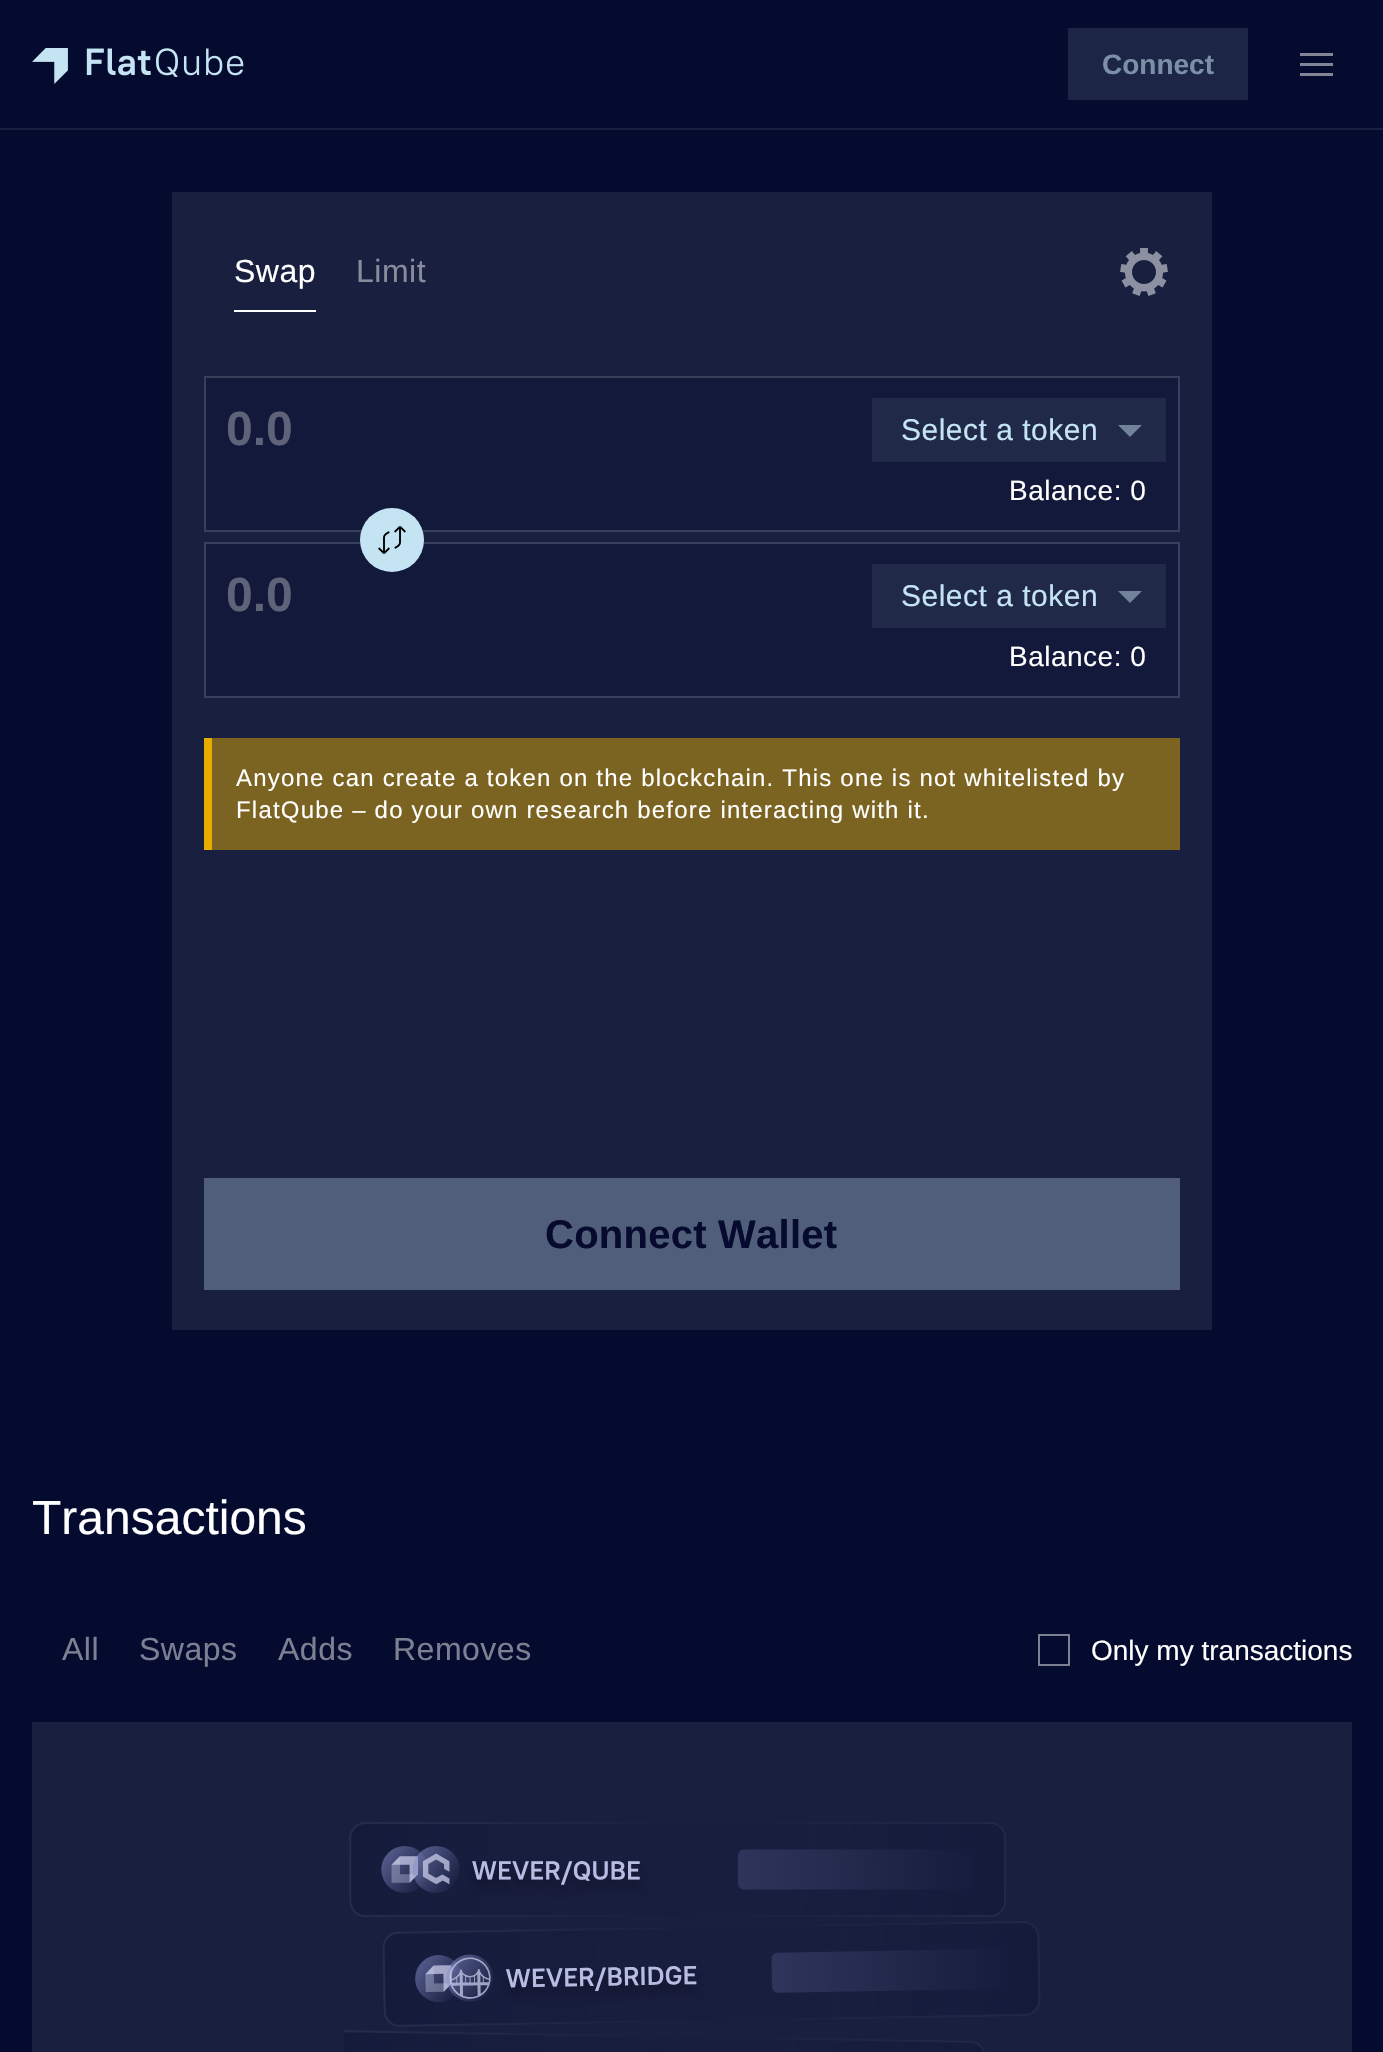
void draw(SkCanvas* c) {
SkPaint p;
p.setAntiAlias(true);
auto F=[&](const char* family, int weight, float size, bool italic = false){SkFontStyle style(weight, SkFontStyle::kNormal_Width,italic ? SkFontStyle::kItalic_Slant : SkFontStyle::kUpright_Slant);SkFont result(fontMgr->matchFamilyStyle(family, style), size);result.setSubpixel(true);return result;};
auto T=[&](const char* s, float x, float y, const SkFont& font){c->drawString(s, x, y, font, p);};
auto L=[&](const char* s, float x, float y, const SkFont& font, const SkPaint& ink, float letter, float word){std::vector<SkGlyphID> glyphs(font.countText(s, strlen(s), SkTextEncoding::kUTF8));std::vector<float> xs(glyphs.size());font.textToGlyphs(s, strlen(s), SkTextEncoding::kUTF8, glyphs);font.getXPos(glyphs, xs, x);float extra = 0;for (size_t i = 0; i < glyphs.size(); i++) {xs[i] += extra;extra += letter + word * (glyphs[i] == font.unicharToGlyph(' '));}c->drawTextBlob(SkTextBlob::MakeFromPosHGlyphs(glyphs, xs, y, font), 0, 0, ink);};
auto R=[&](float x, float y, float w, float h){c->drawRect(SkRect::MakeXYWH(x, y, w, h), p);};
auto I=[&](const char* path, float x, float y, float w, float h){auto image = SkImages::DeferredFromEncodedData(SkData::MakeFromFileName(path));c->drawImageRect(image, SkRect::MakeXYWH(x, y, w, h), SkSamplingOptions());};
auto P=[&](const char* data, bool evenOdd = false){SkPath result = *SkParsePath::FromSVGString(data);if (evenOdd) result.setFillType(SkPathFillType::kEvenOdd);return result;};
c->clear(0xff050b2e);
p.setStroke(true);
p.setStrokeWidth(2);
p.setColor(0xff191f3f);
c->drawRect(SkRect::MakeXYWH(-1,-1,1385,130),p);
I("1.png",32,48,212,36);
p.setStroke(false);
p.setColor(0xff1c2546);
R(1068,28,180,72);
auto f1 = F("Liberation Sans",700,28);
p.setColor(0xff7b90a7);
T("Connect",1102,74,f1);
p.setColor(0xff828597);
R(1300,53,33,3);
R(1300,63,33,3);
R(1300,73,33,3);
p.setColor(0xff191f3f);
R(172,192,1040,1138);
auto f2 = F("Liberation Sans",400,32);
p.setColor(0xffffffff);
L("Swap",234,282,f2,p,.5,0);
R(234,310,82,2);
p.setColor(0xff878b9b);
L("Limit",356,282,f2,p,.5,0);
I("2.png",1120,248,48,48);
p.setColor(0xff13193a);
c->drawRect(SkRect::MakeXYWH(205,377,974,154),p);
p.setStroke(true);
p.setColor(0xff393e5a);
c->drawRect(SkRect::MakeXYWH(205,377,974,154),p);
auto f3 = F("Liberation Sans",700,48);
p.setStroke(false);
p.setColor(0xff5f6379);
T("0.0",226,445,f3);
p.setColor(0xff212949);
R(872,398,294,64);
auto f4 = F("Liberation Sans",400,30);
p.setColor(0xffc5e4f3);
L("Select a token",901,440,f4,p,.5,0);
p.setColor(0xff70839b);
c->drawPath(P("M1130 437l-12-12h24z"),p);
auto f5 = F("Liberation Sans",400,28);
p.setColor(0xffffffff);
L("Balance: 0",1009,500,f5,p,.5,0);
p.setColor(0xff13193a);
c->drawRect(SkRect::MakeXYWH(205,543,974,154),p);
p.setStroke(true);
p.setColor(0xff393e5a);
c->drawRect(SkRect::MakeXYWH(205,543,974,154),p);
p.setStroke(false);
p.setColor(0xffc5e4f3);
c->drawCircle(392,540,32,p);
I("3.png",378,526,28,28);
p.setColor(0xff5f6379);
T("0.0",226,611,f3);
p.setColor(0xff212949);
R(872,564,294,64);
p.setColor(0xffc5e4f3);
L("Select a token",901,606,f4,p,.5,0);
p.setColor(0xff70839b);
c->drawPath(P("M1130 603l-12-12h24z"),p);
p.setColor(0xffffffff);
L("Balance: 0",1009,666,f5,p,.5,0);
p.setColor(0xff7b6321);
R(212,738,968,112);
p.setColor(0xffe6ac00);
R(204,738,8,112);
auto f6 = F("Liberation Sans",400,24);
p.setColor(0xffffffff);
L("Anyone can create a token on the blockchain. This one is not whitelisted by",236,786,f6,p,1.2,0);
L("FlatQube – do your own research before interacting with it.",236,818,f6,p,1.2,0);
p.setColor(0xff505e79);
R(204,1178,976,112);
auto f7 = F("Liberation Sans",700,40);
p.setColor(0xff050a2e);
L("Connect Wallet",545,1248,f7,p,.25,0);
auto f8 = F("Liberation Sans",400,48);
p.setColor(0xffffffff);
T("Transactions",32,1534,f8);
p.setColor(0xff7d8092);
L("All",62,1660,f2,p,.5,0);
L("Swaps",139,1660,f2,p,.5,0);
L("Adds",278,1660,f2,p,.5,0);
L("Removes",393,1660,f2,p,.5,0);
p.setStroke(true);
c->drawRect(SkRect::MakeXYWH(1039,1635,30,30),p);
p.setStroke(false);
p.setColor(0xffffffff);
T("Only my transactions",1091,1660,f5);
p.setColor(0xff191f3f);
R(32,1722,1320,330);
I("4.png",344,1822,697,230);
}
